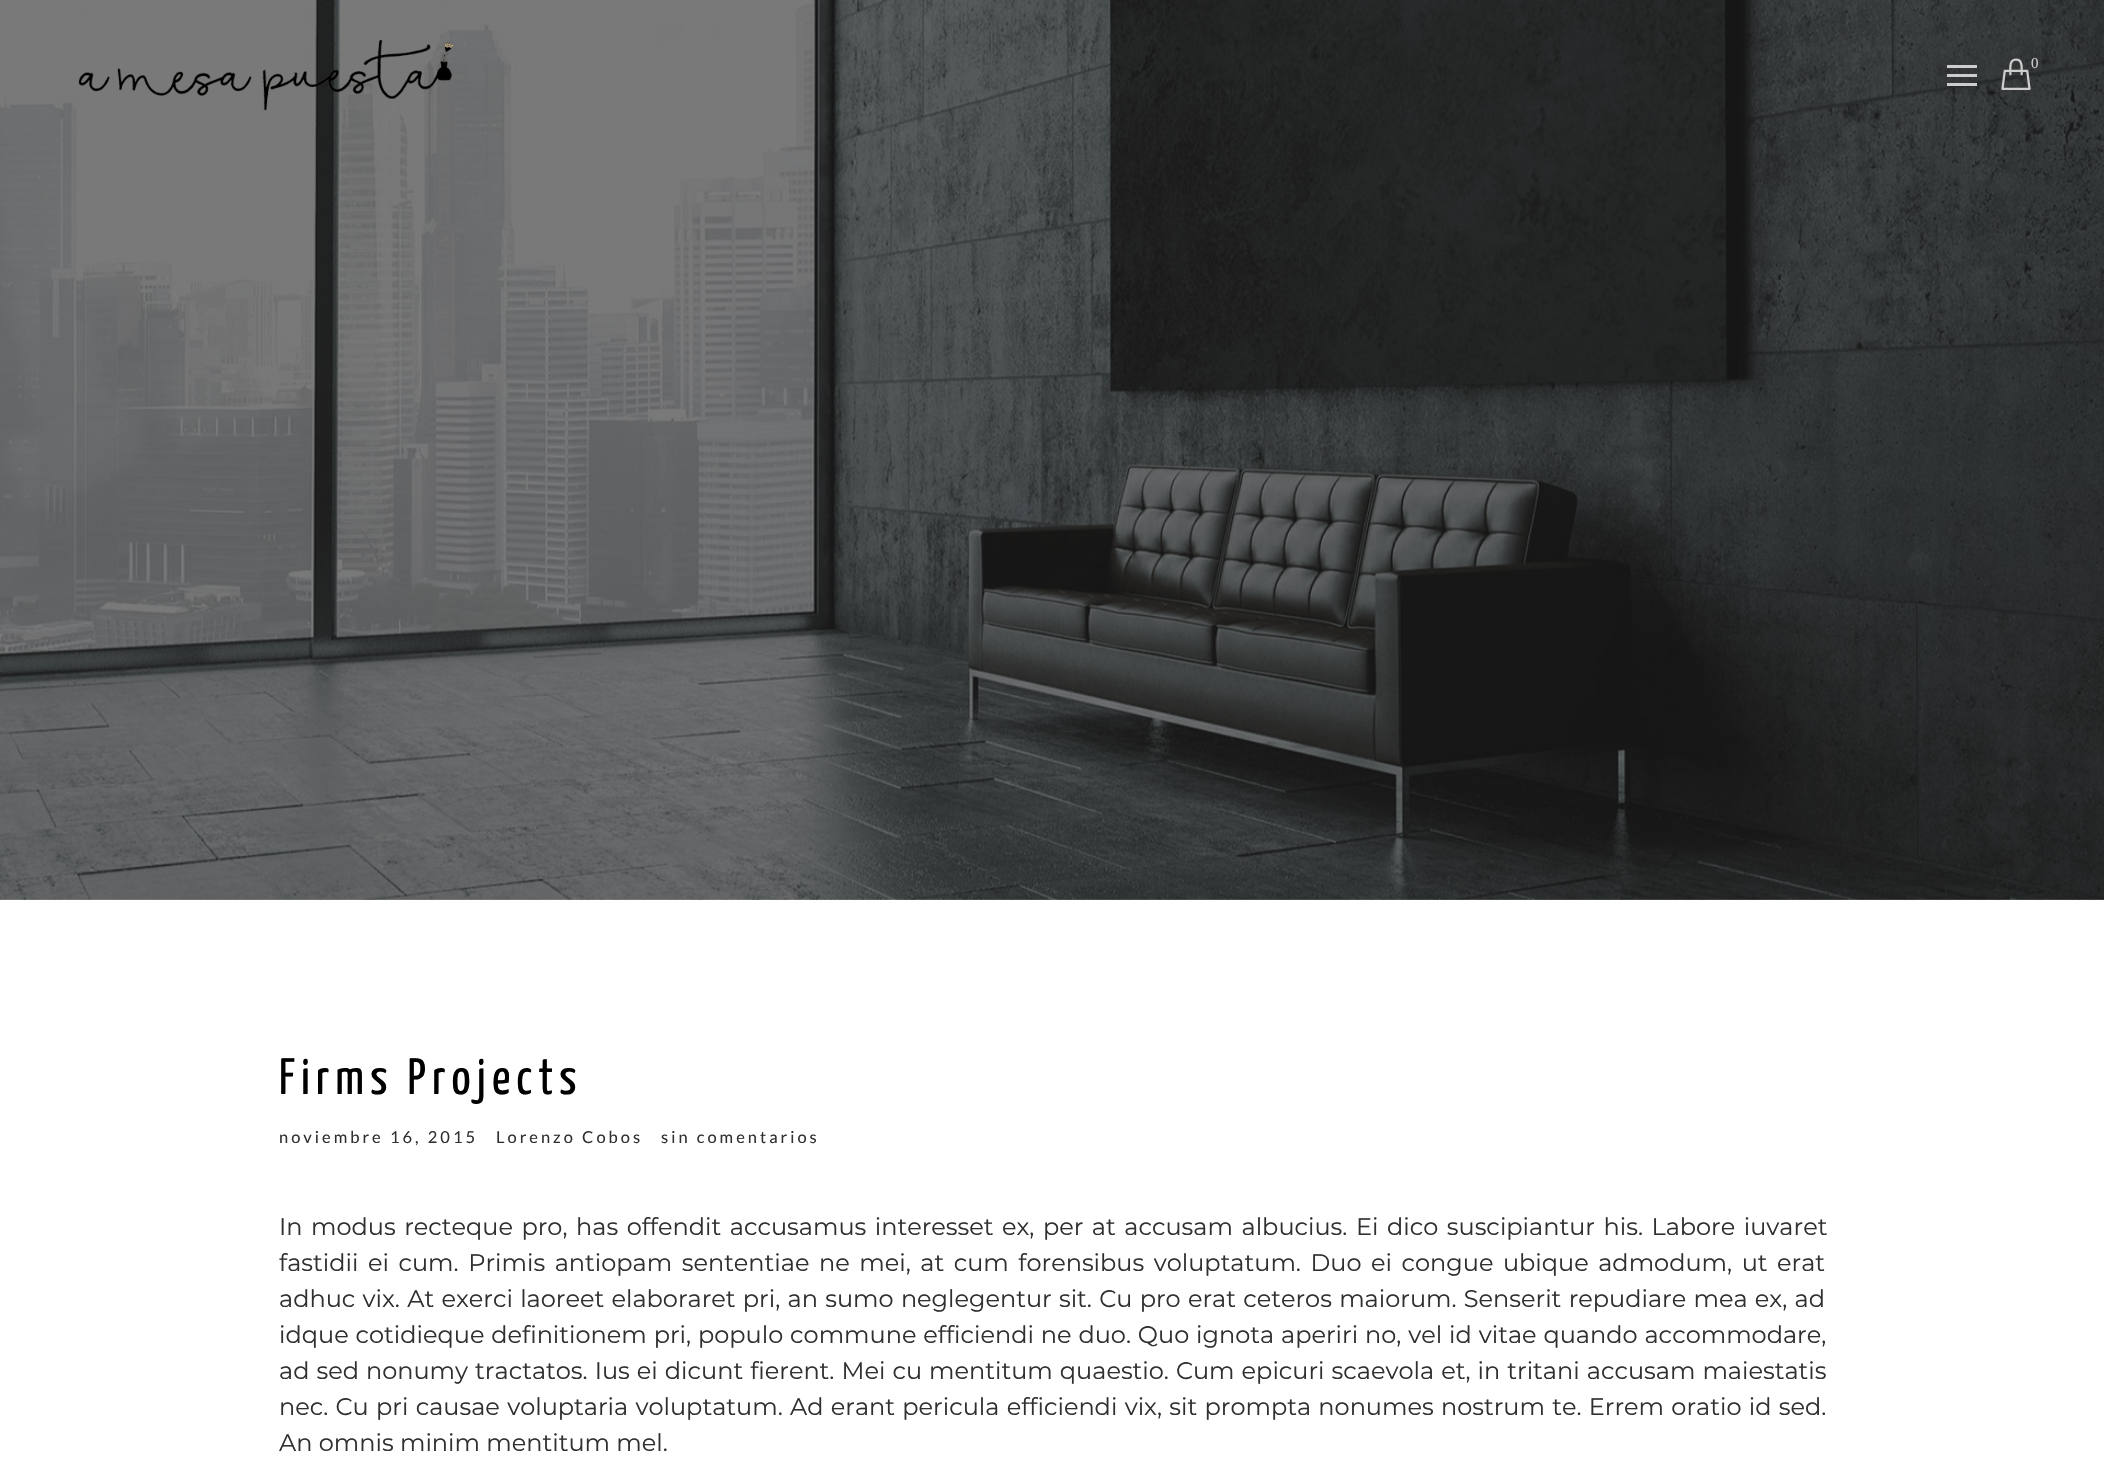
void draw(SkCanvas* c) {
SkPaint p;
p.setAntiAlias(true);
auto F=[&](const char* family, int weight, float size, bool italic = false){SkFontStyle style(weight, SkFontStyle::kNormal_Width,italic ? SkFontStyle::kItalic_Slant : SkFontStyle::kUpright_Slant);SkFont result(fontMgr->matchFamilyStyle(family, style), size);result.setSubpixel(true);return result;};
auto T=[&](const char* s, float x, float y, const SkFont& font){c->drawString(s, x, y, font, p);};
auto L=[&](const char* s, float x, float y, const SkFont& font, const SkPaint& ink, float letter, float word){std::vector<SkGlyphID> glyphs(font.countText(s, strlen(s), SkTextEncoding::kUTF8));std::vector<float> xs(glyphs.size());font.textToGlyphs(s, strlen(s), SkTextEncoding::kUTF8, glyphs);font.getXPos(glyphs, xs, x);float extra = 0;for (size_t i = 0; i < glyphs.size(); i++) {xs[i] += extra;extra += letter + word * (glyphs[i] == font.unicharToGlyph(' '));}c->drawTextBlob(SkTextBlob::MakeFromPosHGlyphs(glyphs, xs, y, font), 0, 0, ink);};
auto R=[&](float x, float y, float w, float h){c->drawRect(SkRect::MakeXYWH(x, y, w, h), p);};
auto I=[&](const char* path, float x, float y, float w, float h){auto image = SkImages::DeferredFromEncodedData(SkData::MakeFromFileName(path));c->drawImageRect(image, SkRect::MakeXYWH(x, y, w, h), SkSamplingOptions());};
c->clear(0xffffffff);
I("1.png",0,0,2104,900);
I("2.png",78,39,376,72);
I("3.png",2001,58,30,32);
auto f1 = F("Liberation Serif",400,15);
p.setColor(0xffcdcdcd);
T("0",2031,68,f1);
R(1947,74,30,3);
R(1947,65,30,3);
R(1947,83,30,3);
auto f2 = F("Yanone Kaffeesatz",400,51);
p.setColor(0xff000000);
L("Firms Projects",279,1094,f2,p,6,0);
auto f3 = F("Lato",400,16.5);
p.setColor(0xff303030);
L("noviembre 16, 2015",279,1143,f3,p,3,0);
L("Lorenzo Cobos",496,1143,f3,p,3,0);
L("sin comentarios",661,1143,f3,p,3,0);
auto f4 = F("Montserrat",100,24);
L("In modus recteque pro, has offendit accusamus interesset ex, per at accusam albucius. Ei dico suscipiantur his. Labore iuvaret",279,1235,f4,p,0,2.25);
L("fastidii ei cum. Primis antiopam sententiae ne mei, at cum forensibus voluptatum. Duo ei congue ubique admodum, ut erat",279,1271,f4,p,0,3.25);
L("adhuc vix. At exerci laoreet elaboraret pri, an sumo neglegentur sit. Cu pro erat ceteros maiorum. Senserit repudiare mea ex, ad",279,1307,f4,p,0,1);
L("idque cotidieque definitionem pri, populo commune efficiendi ne duo. Quo ignota aperiri no, vel id vitae quando accommodare,",279,1343,f4,p,0,.6);
L("ad sed nonumy tractatos. Ius ei dicunt fierent. Mei cu mentitum quaestio. Cum epicuri scaevola et, in tritani accusam maiestatis",279,1379,f4,p,0,.75);
L("nec. Cu pri causae voluptaria voluptatum. Ad erant pericula efficiendi vix, sit prompta nonumes nostrum te. Errem oratio id sed.",279,1415,f4,p,0,1);
T("An omnis minim mentitum mel.",279,1451,f4);
}
